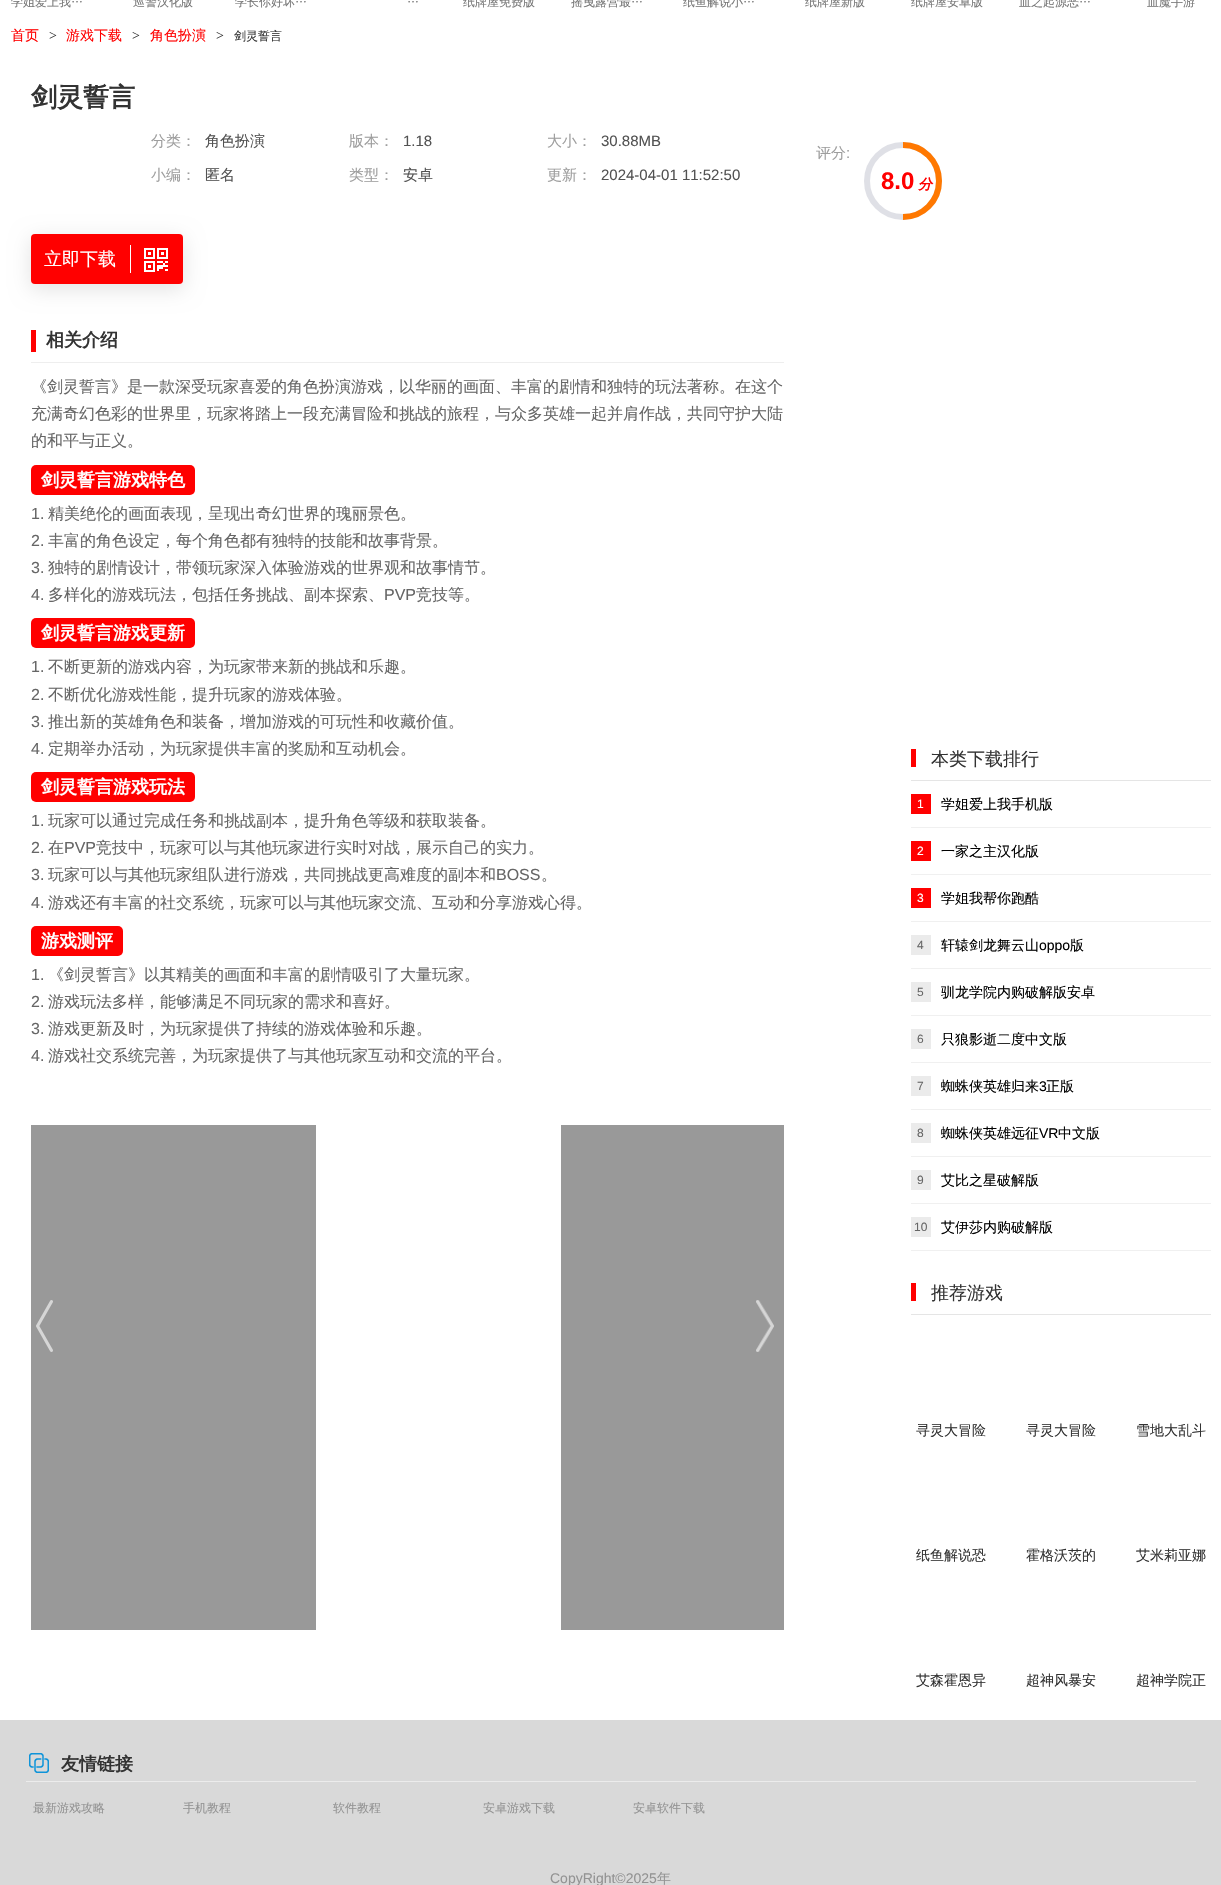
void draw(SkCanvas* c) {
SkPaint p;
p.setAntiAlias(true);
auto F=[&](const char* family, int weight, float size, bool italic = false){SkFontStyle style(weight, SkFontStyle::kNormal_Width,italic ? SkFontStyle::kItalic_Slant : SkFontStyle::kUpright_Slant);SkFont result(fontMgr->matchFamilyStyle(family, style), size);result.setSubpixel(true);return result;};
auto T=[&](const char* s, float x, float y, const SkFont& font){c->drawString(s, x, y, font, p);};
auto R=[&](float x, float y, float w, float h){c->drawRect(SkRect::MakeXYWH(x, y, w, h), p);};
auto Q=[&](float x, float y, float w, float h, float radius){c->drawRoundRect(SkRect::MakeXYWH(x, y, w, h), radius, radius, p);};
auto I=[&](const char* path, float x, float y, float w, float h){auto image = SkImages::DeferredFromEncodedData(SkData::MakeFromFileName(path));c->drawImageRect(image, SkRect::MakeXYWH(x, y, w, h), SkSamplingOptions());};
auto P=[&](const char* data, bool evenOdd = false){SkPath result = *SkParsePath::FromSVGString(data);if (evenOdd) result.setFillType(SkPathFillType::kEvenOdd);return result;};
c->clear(0xffffffff);
auto f1 = F("WenQuanYi Zen Hei",500,12);
p.setColor(0xff777777);
T("学姐爱上我…",11,6,f1);
T("巡警汉化版",133,6,f1);
T("学长你好坏…",235,6,f1);
T("…",407,6,f1);
T("纸牌屋免费版",463,6,f1);
T("摇曳露营最…",571,6,f1);
c->save();
c->clipRect(SkRect::MakeXYWH(683,0,80,10));
T("纸鱼解说小…",683,6,f1);
c->restore();
T("纸牌屋新版",805,6,f1);
T("纸牌屋安卓版",911,6,f1);
T("血之起源恶…",1019,6,f1);
T("血魔手游",1147,6,f1);
auto f2 = F("WenQuanYi Zen Hei",500,14);
p.setColor(0xffff0000);
T("首页",11,40,f2);
auto f3 = F("Liberation Serif",400,14);
p.setColor(0xff333333);
T(">",49,40,f3);
p.setColor(0xffff0000);
T("游戏下载",66,40,f2);
p.setColor(0xff333333);
T(">",132,40,f3);
p.setColor(0xffff0000);
T("角色扮演",150,40,f2);
p.setColor(0xff333333);
T(">",216,40,f3);
T("剑灵誓言",234,40,f1);
auto f4 = F("WenQuanYi Zen Hei",700,26);
T("剑灵誓言",31,106,f4);
auto f5 = F("WenQuanYi Zen Hei",500,15);
p.setColor(0xff9e9e9e);
T("分类：",151,146,f5);
p.setColor(0xff525252);
T("角色扮演",205,146,f5);
p.setColor(0xff9e9e9e);
T("版本：",349,146,f5);
auto f6 = F("Liberation Sans",400,15);
p.setColor(0xff525252);
T("1.18",403,146,f6);
p.setColor(0xff9e9e9e);
T("大小：",547,146,f5);
p.setColor(0xff525252);
T("30.88MB",601,146,f6);
p.setColor(0xff9e9e9e);
T("小编：",151,180,f5);
p.setColor(0xff525252);
T("匿名",205,180,f5);
p.setColor(0xff9e9e9e);
T("类型：",349,180,f5);
p.setColor(0xff525252);
T("安卓",403,180,f5);
p.setColor(0xff9e9e9e);
T("更新：",547,180,f5);
p.setColor(0xff525252);
T("2024-04-01 11:52:50",601,180,f6);
p.setColor(0x1a000000);
p.setMaskFilter(SkMaskFilter::MakeBlur(kNormal_SkBlurStyle, 10));
c->drawRoundRect(SkRect::MakeXYWH(30,238,154,52),5,5,p);
p.setMaskFilter(nullptr);
p.setColor(0xffff0000);
Q(31,234,152,50,4);
p.setColor(0xffffffff);
R(130,245,1,28);
auto f7 = F("WenQuanYi Zen Hei",500,18);
T("立即下载",44,265,f7);
I("1.png",144,248,24,24);
p.setColor(0xff9e9e9e);
T("评分",816,158,f5);
T(":",846,158,f6);
p.setStroke(true);
p.setStrokeWidth(6);
p.setColor(0xffdfe0e6);
c->drawPath(P("M903 145c20 0 36 16 36 36c0 20-16 36-36 36c-20 0-36-16-36-36c0-20 16-36 36-36"),p);
p.setColor(0xffff7800);
c->drawPath(P("M903 145c20 0 36 16 36 36c0 20-16 36-36 36"),p);
auto f8 = F("Liberation Sans",700,24);
p.setStroke(false);
p.setColor(0xffff0000);
T("8.0",881,189,f8);
auto f9 = F("WenQuanYi Zen Hei",700,14,true);
T("分",918,189,f9);
p.setColor(0xffeeeeee);
R(31,362,753,1);
p.setColor(0xffff0000);
R(31,330,5,22);
auto f10 = F("WenQuanYi Zen Hei",700,18);
p.setColor(0xff333333);
T("相关介绍",46,346,f10);
auto f11 = F("WenQuanYi Zen Hei",500,16);
p.setColor(0xff666666);
T("《剑灵誓言》是一款深受玩家喜爱的角色扮演游戏，以华丽的画面、丰富的剧情和独特的玩法著称。在这个",31,392,f11);
T("充满奇幻色彩的世界里，玩家将踏上一段充满冒险和挑战的旅程，与众多英雄一起并肩作战，共同守护大陆",31,419,f11);
T("的和平与正义。",31,446,f11);
p.setColor(0xffff0000);
Q(31,465,164,30,5);
p.setColor(0xffffffff);
T("剑灵誓言游戏特色",41,486,f10);
auto f12 = F("Liberation Sans",400,16);
p.setColor(0xff666666);
T("1.",31,519,f12);
T("精美绝伦的画面表现，呈现出奇幻世界的瑰丽景色。",48,519,f11);
T("2.",31,546,f12);
T("丰富的角色设定，每个角色都有独特的技能和故事背景。",48,546,f11);
T("3.",31,573,f12);
T("独特的剧情设计，带领玩家深入体验游戏的世界观和故事情节。",48,573,f11);
T("4.",31,600,f12);
T("多样化的游戏玩法，包括任务挑战、副本探索、",48,600,f11);
T("PVP",384,600,f12);
T("竞技等。",416,600,f11);
p.setColor(0xffff0000);
Q(31,618,164,30,5);
p.setColor(0xffffffff);
T("剑灵誓言游戏更新",41,639,f10);
p.setColor(0xff666666);
T("1.",31,672,f12);
T("不断更新的游戏内容，为玩家带来新的挑战和乐趣。",48,672,f11);
T("2.",31,700,f12);
T("不断优化游戏性能，提升玩家的游戏体验。",48,700,f11);
T("3.",31,727,f12);
T("推出新的英雄角色和装备，增加游戏的可玩性和收藏价值。",48,727,f11);
T("4.",31,754,f12);
T("定期举办活动，为玩家提供丰富的奖励和互动机会。",48,754,f11);
p.setColor(0xffff0000);
Q(31,772,164,30,5);
p.setColor(0xffffffff);
T("剑灵誓言游戏玩法",41,793,f10);
p.setColor(0xff666666);
T("1.",31,826,f12);
T("玩家可以通过完成任务和挑战副本，提升角色等级和获取装备。",48,826,f11);
T("2.",31,853,f12);
T("在",48,853,f11);
T("PVP",64,853,f12);
T("竞技中，玩家可以与其他玩家进行实时对战，展示自己的实力。",96,853,f11);
T("3.",31,880,f12);
T("玩家可以与其他玩家组队进行游戏，共同挑战更高难度的副本和",48,880,f11);
T("BOSS",496,880,f12);
T("。",541,880,f11);
T("4.",31,908,f12);
T("游戏还有丰富的社交系统，玩家可以与其他玩家交流、互动和分享游戏心得。",48,908,f11);
p.setColor(0xffff0000);
Q(31,926,92,30,5);
p.setColor(0xffffffff);
T("游戏测评",41,947,f10);
p.setColor(0xff666666);
T("1.",31,980,f12);
T("《剑灵誓言》以其精美的画面和丰富的剧情吸引了大量玩家。",48,980,f11);
T("2.",31,1007,f12);
T("游戏玩法多样，能够满足不同玩家的需求和喜好。",48,1007,f11);
T("3.",31,1034,f12);
T("游戏更新及时，为玩家提供了持续的游戏体验和乐趣。",48,1034,f11);
T("4.",31,1061,f12);
T("游戏社交系统完善，为玩家提供了与其他玩家互动和交流的平台。",48,1061,f11);
p.setColor(0xff999999);
R(31,1125,285,505);
R(561,1125,223,505);
I("2.png",36,1300,17,52);
I("3.png",756,1300,18,52);
p.setColor(0xffe5e5e5);
R(911,780,300,1);
p.setColor(0xffff0000);
R(911,749,5,18);
p.setColor(0xff333333);
T("本类下载排行",931,765,f7);
p.setColor(0xfff0f0f0);
R(911,827,300,1);
p.setColor(0xffff0000);
R(911,794,20,20);
auto f13 = F("Liberation Sans",400,12);
p.setColor(0xffffffff);
T("1",917,808,f13);
p.setColor(0xff000000);
T("学姐爱上我手机版",941,809,f2);
p.setColor(0xfff0f0f0);
R(911,874,300,1);
p.setColor(0xffff0000);
R(911,841,20,20);
p.setColor(0xffffffff);
T("2",917,855,f13);
p.setColor(0xff000000);
T("一家之主汉化版",941,856,f2);
p.setColor(0xfff0f0f0);
R(911,921,300,1);
p.setColor(0xffff0000);
R(911,888,20,20);
p.setColor(0xffffffff);
T("3",917,902,f13);
p.setColor(0xff000000);
T("学姐我帮你跑酷",941,903,f2);
p.setColor(0xfff0f0f0);
R(911,968,300,1);
p.setColor(0xffebebeb);
R(911,935,20,20);
p.setColor(0xff666666);
T("4",917,949,f13);
c->save();
c->clipRect(SkRect::MakeXYWH(941,935,270,20));
p.setColor(0xff000000);
T("轩辕剑龙舞云山",941,950,f2);
c->restore();
auto f14 = F("Liberation Sans",400,14);
T("oppo",1039,950,f14);
T("版",1070,950,f2);
p.setColor(0xfff0f0f0);
R(911,1015,300,1);
p.setColor(0xffebebeb);
R(911,982,20,20);
p.setColor(0xff666666);
T("5",917,996,f13);
c->save();
c->clipRect(SkRect::MakeXYWH(941,982,270,20));
p.setColor(0xff000000);
T("驯龙学院内购破解版安卓",941,997,f2);
c->restore();
p.setColor(0xfff0f0f0);
R(911,1062,300,1);
p.setColor(0xffebebeb);
R(911,1029,20,20);
p.setColor(0xff666666);
T("6",917,1043,f13);
p.setColor(0xff000000);
T("只狼影逝二度中文版",941,1044,f2);
p.setColor(0xfff0f0f0);
R(911,1109,300,1);
p.setColor(0xffebebeb);
R(911,1076,20,20);
p.setColor(0xff666666);
T("7",917,1090,f13);
c->save();
c->clipRect(SkRect::MakeXYWH(941,1076,270,20));
p.setColor(0xff000000);
T("蜘蛛侠英雄归来",941,1091,f2);
c->restore();
T("3",1039,1091,f14);
T("正版",1046,1091,f2);
p.setColor(0xfff0f0f0);
R(911,1156,300,1);
p.setColor(0xffebebeb);
R(911,1123,20,20);
p.setColor(0xff666666);
T("8",917,1137,f13);
c->save();
c->clipRect(SkRect::MakeXYWH(941,1123,270,20));
p.setColor(0xff000000);
T("蜘蛛侠英雄远征",941,1138,f2);
c->restore();
T("VR",1039,1138,f14);
T("中文版",1058,1138,f2);
p.setColor(0xfff0f0f0);
R(911,1203,300,1);
p.setColor(0xffebebeb);
R(911,1170,20,20);
p.setColor(0xff666666);
T("9",917,1184,f13);
p.setColor(0xff000000);
T("艾比之星破解版",941,1185,f2);
p.setColor(0xfff0f0f0);
R(911,1250,300,1);
p.setColor(0xffebebeb);
R(911,1217,20,20);
p.setColor(0xff666666);
T("10",914,1231,f13);
p.setColor(0xff000000);
T("艾伊莎内购破解版",941,1232,f2);
p.setColor(0xffe5e5e5);
R(911,1314,300,1);
p.setColor(0xffff0000);
R(911,1283,5,18);
p.setColor(0xff333333);
T("推荐游戏",931,1299,f7);
T("寻灵大冒险",916,1435,f2);
T("寻灵大冒险",1026,1435,f2);
T("雪地大乱斗",1136,1435,f2);
T("纸鱼解说恐",916,1560,f2);
T("霍格沃茨的",1026,1560,f2);
T("艾米莉亚娜",1136,1560,f2);
T("艾森霍恩异",916,1685,f2);
T("超神风暴安",1026,1685,f2);
T("超神学院正",1136,1685,f2);
p.setColor(0xffd9d9d9);
R(0,1720,1221,165);
p.setColor(0xffececec);
R(26,1781,1170,1);
I("4.png",29,1753,20,20);
p.setColor(0xff333333);
T("友情链接",61,1770,f10);
p.setColor(0xff939393);
T("最新游戏攻略",33,1812,f1);
T("手机教程",183,1812,f1);
T("软件教程",333,1812,f1);
T("安卓游戏下载",483,1812,f1);
T("安卓软件下载",633,1812,f1);
T("CopyRight©2025",550,1883,f14);
T("年",657,1883,f2);
}
